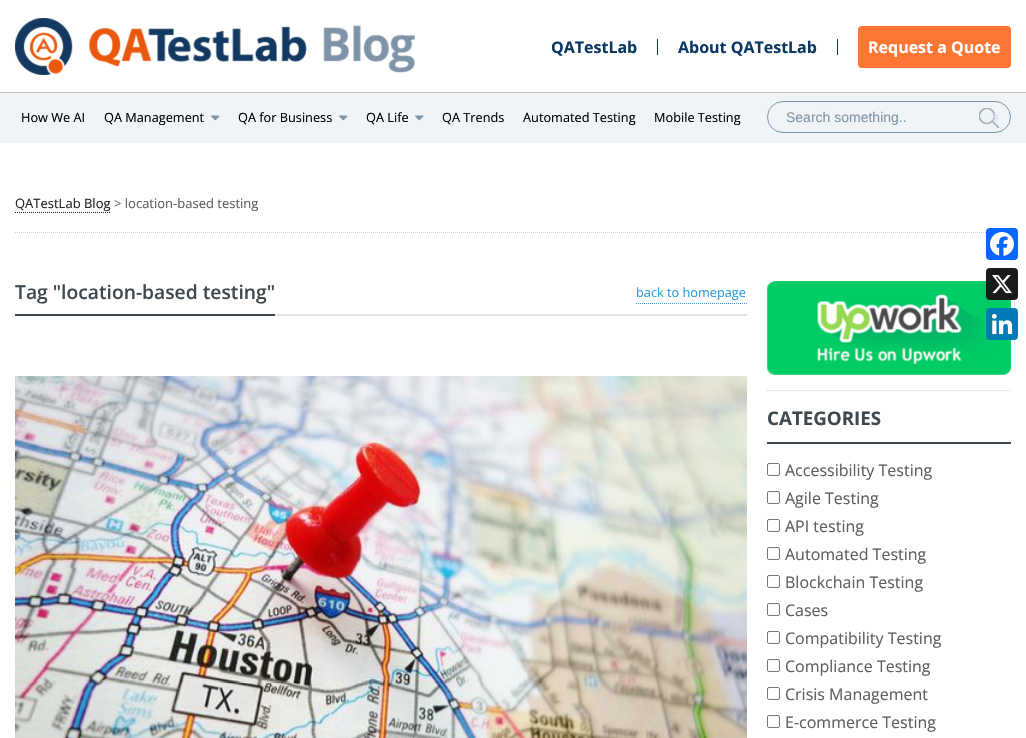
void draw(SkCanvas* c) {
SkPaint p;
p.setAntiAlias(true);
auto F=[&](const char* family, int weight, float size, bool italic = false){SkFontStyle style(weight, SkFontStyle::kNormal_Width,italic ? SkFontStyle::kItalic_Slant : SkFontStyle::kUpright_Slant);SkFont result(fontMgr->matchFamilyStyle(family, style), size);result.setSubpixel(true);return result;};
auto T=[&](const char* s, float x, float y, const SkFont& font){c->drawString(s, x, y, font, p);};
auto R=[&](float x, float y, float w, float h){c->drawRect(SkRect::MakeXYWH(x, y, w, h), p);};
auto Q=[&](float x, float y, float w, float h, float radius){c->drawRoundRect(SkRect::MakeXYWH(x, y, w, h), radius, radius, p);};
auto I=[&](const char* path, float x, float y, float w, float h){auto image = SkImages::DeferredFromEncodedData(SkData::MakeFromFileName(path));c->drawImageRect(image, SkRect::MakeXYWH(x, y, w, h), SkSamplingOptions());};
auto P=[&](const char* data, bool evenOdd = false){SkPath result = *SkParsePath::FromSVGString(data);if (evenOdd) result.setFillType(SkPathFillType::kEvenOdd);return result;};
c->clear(0xffffffff);
I("1.png",15,18,400,57);
p.setColor(0xff0a3863);
R(657,39,1,16);
auto f1 = F("Open Sans",700,16);
T("QATestLab",551,53,f1);
R(837,39,1,16);
T("About QATestLab",678,53,f1);
p.setColor(0xfffd7634);
Q(858,26,153,42,4);
p.setColor(0xffffffff);
T("Request a Quote",868,53,f1);
p.setColor(0xfff1f4f7);
R(0,93,1026,50);
p.setColor(0xffc1c3c6);
R(0,92,1026,1);
auto f2 = F("Open Sans",400,12.75);
p.setColor(0xff000000);
T("How We AI",21,122,f2);
T("QA Management",104,122,f2);
I("2.png",211,115,9,6);
T("QA for Business",238,122,f2);
I("2.png",339,115,9,6);
T("QA Life",366,122,f2);
I("2.png",415,115,9,6);
T("QA Trends",442,122,f2);
T("Automated Testing",523,122,f2);
T("Mobile Testing",654,122,f2);
p.setStroke(true);
p.setStrokeWidth(1);
p.setColor(0xff7f94a8);
c->drawRoundRect(SkRect::MakeXYWH(767.5,101.5,243,31),15.5,15.5,p);
I("3.png",979,108,20,20);
auto f3 = F("Liberation Sans",400,14);
p.setStroke(false);
T("Search something..",786,122,f3);
auto f4 = F("Liberation Sans",400,13);
p.setColor(0xffdde3e9);
T("s",992,121,f4);
p.setStroke(true);
p.setColor(0xffcccccc);
p.setPathEffect(SkDashPathEffect::Make({{1,1}}, 0));
c->drawPath(P("M15 232.5h996"),p);
p.setPathEffect(nullptr);
auto f5 = F("Open Sans",400,13);
p.setStroke(false);
p.setColor(0xff232323);
T("QATestLab Blog",15,208,f5);
p.setStroke(true);
p.setPathEffect(SkDashPathEffect::Make({{1,1}}, 0));
c->drawPath(P("M15 212.5h96"),p);
p.setPathEffect(nullptr);
p.setStroke(false);
p.setColor(0xff5e5e5e);
T("> location-based testing",114,208,f5);
p.setColor(0xffe3e3e3);
R(275,314,472,2);
p.setColor(0xff3f484f);
R(15,314,260,2);
auto f6 = F("Open Sans",600,19.25);
T("Tag \"location-based testing\"",15,299,f6);
p.setStroke(true);
p.setColor(0xff2d9bdb);
p.setPathEffect(SkDashPathEffect::Make({{1,1}}, 0));
c->drawPath(P("M636 303.5h111"),p);
p.setPathEffect(nullptr);
p.setStroke(false);
T("back to homepage",636,297,f2);
I("4.png",15,376,732,362);
p.setStroke(true);
p.setColor(0xffcccccc);
p.setPathEffect(SkDashPathEffect::Make({{1,1}}, 0));
c->drawPath(P("M767 390.5h244"),p);
p.setPathEffect(nullptr);
I("5.png",766,281,245,94);
p.setStroke(false);
p.setColor(0xff3f484f);
R(767,442,244,2);
auto f7 = F("Open Sans",700,18.75);
T("CATEGORIES",767,425,f7);
p.setStroke(true);
p.setColor(0xff767676);
c->drawRoundRect(SkRect::MakeXYWH(767.5,463.5,12,12),1.5,1.5,p);
auto f8 = F("Open Sans",400,16);
p.setStroke(false);
p.setColor(0xff5e5e5e);
T("Accessibility Testing",785,476,f8);
p.setStroke(true);
p.setColor(0xff767676);
c->drawRoundRect(SkRect::MakeXYWH(767.5,491.5,12,12),1.5,1.5,p);
p.setStroke(false);
p.setColor(0xff5e5e5e);
T("Agile Testing",785,504,f8);
p.setStroke(true);
p.setColor(0xff767676);
c->drawRoundRect(SkRect::MakeXYWH(767.5,519.5,12,12),1.5,1.5,p);
p.setStroke(false);
p.setColor(0xff5e5e5e);
T("API testing",785,532,f8);
p.setStroke(true);
p.setColor(0xff767676);
c->drawRoundRect(SkRect::MakeXYWH(767.5,547.5,12,12),1.5,1.5,p);
p.setStroke(false);
p.setColor(0xff5e5e5e);
T("Automated Testing",785,560,f8);
p.setStroke(true);
p.setColor(0xff767676);
c->drawRoundRect(SkRect::MakeXYWH(767.5,575.5,12,12),1.5,1.5,p);
p.setStroke(false);
p.setColor(0xff5e5e5e);
T("Blockchain Testing",785,588,f8);
p.setStroke(true);
p.setColor(0xff767676);
c->drawRoundRect(SkRect::MakeXYWH(767.5,603.5,12,12),1.5,1.5,p);
p.setStroke(false);
p.setColor(0xff5e5e5e);
T("Cases",785,616,f8);
p.setStroke(true);
p.setColor(0xff767676);
c->drawRoundRect(SkRect::MakeXYWH(767.5,631.5,12,12),1.5,1.5,p);
p.setStroke(false);
p.setColor(0xff5e5e5e);
T("Compatibility Testing",785,644,f8);
p.setStroke(true);
p.setColor(0xff767676);
c->drawRoundRect(SkRect::MakeXYWH(767.5,659.5,12,12),1.5,1.5,p);
p.setStroke(false);
p.setColor(0xff5e5e5e);
T("Compliance Testing",785,672,f8);
p.setStroke(true);
p.setColor(0xff767676);
c->drawRoundRect(SkRect::MakeXYWH(767.5,687.5,12,12),1.5,1.5,p);
p.setStroke(false);
p.setColor(0xff5e5e5e);
T("Crisis Management",785,700,f8);
p.setStroke(true);
p.setColor(0xff767676);
c->drawRoundRect(SkRect::MakeXYWH(767.5,715.5,12,12),1.5,1.5,p);
p.setStroke(false);
p.setColor(0xff5e5e5e);
T("E-commerce Testing",785,728,f8);
p.setColor(0xff0866ff);
Q(986,228,32,32,4);
I("6.png",990,232,24,24);
p.setColor(0xff1a1a1a);
Q(986,268,32,32,4);
I("7.png",992,275,20,19);
p.setColor(0xff007bb5);
Q(986,308,32,32,4);
I("8.png",991,313,22,22);
}
